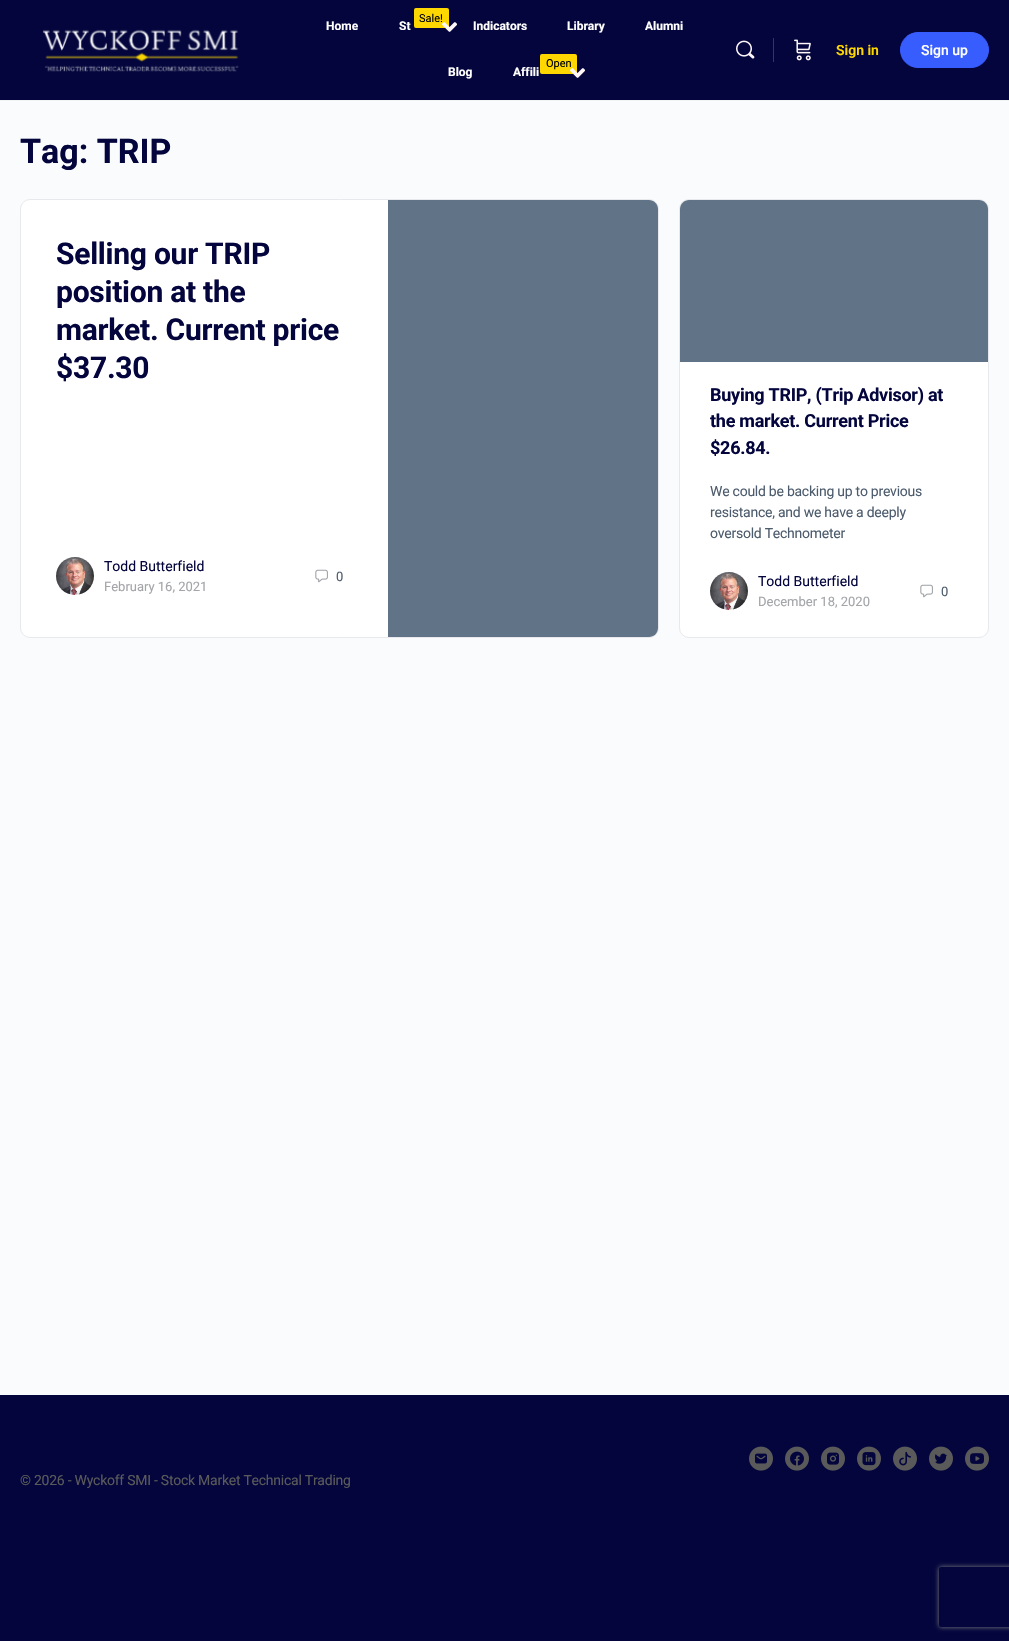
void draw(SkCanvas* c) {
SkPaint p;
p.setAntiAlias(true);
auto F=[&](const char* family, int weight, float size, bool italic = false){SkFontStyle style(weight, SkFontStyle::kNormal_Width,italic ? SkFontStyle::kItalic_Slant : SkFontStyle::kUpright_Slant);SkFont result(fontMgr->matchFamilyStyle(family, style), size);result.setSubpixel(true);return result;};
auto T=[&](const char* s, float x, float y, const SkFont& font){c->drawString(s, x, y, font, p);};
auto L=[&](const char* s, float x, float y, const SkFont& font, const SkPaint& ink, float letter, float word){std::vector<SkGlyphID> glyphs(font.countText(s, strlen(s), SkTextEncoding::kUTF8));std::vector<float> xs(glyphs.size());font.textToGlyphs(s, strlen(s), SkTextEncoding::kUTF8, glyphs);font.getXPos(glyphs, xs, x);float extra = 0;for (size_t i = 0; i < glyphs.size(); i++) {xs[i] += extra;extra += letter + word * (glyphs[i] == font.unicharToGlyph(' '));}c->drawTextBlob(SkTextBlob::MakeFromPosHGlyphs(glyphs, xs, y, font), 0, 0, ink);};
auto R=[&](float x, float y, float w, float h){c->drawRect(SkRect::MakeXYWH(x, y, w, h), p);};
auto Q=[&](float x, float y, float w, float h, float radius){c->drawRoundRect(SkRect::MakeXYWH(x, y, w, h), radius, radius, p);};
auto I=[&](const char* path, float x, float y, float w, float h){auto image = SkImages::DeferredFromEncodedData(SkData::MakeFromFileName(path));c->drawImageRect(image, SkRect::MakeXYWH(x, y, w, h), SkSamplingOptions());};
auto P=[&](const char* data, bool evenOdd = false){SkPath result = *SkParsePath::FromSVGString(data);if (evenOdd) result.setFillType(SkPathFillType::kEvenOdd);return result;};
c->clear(0xfffafbfd);
p.setColor(0xfff2f3f6);
R(0,100,1009,1);
p.setColor(0xff03053c);
R(0,0,1009,100);
I("1.png",42,29,197,43);
auto f1 = F("Roboto",700,12);
p.setColor(0xffffffff);
T("Home",326,30,f1);
p.setColor(0xffffd700);
Q(414,8,35,20,2);
auto f2 = F("Roboto",400,11);
p.setColor(0xff000000);
T("Sale!",419,22,f2);
p.setColor(0xffffffff);
T("St",399,30,f1);
I("2.png",442,22,15,10);
T("Indicators",473,30,f1);
T("Library",567,30,f1);
T("Alumni",645,30,f1);
T("Blog",448,76,f1);
p.setColor(0xffffd700);
Q(540,54,37,20,2);
p.setColor(0xff000000);
T("Open",546,67,f2);
p.setColor(0xffffffff);
T("Affili",513,76,f1);
I("2.png",570,68,15,10);
I("3.png",736,40,19,19);
p.setColor(0xff353561);
R(773,38,1,24);
I("4.png",794,39,17,22);
auto f3 = F("Roboto",600,14);
p.setColor(0xffffd700);
T("Sign in",836,55,f3);
p.setColor(0xff385dff);
c->drawRoundRect(SkRect::MakeXYWH(900.5,32.5,88,35),17.5,17.5,p);
p.setStroke(true);
p.setStrokeWidth(1);
c->drawRoundRect(SkRect::MakeXYWH(900.5,32.5,88,35),17.5,17.5,p);
auto f4 = F("Roboto",500,14);
p.setStroke(false);
p.setColor(0xffffffff);
T("Sign up",921,55,f4);
auto f5 = F("Roboto",700,34);
p.setColor(0xff03053c);
T("Tag: TRIP",20,163,f5);
p.setColor(0xffffffff);
c->drawRoundRect(SkRect::MakeXYWH(20.5,199.5,638,438),9.5,9.5,p);
p.setStroke(true);
p.setColor(0xffe7e9ec);
c->drawRoundRect(SkRect::MakeXYWH(20.5,199.5,638,438),9.5,9.5,p);
auto f6 = F("Roboto",700,30);
p.setStroke(false);
p.setColor(0xff03053c);
L("Selling our TRIP",56,264,f6,p,-.25,0);
L("position at the",56,302,f6,p,-.25,0);
L("market. Current price",56,340,f6,p,-.25,0);
L("$37.30",56,378,f6,p,-.25,0);
I("5.png",56,557,38,38);
auto f7 = F("Roboto",400,14);
T("Todd Butterfield",104,571,f7);
auto f8 = F("Roboto",400,13);
p.setColor(0xffa3a5a9);
T("February 16, 2021",104,591,f8);
I("6.png",315,569,13,14);
p.setColor(0xff4d5c6d);
T("0",336,581,f8);
p.setColor(0xff607387);
c->drawPath(P("M388 200h261c5 0 9 4 9 9v419c0 5-4 9-9 9h-261z"),p);
p.setColor(0xffffffff);
c->drawRoundRect(SkRect::MakeXYWH(679.5,199.5,309,438),9.5,9.5,p);
p.setStroke(true);
p.setColor(0xffe7e9ec);
c->drawRoundRect(SkRect::MakeXYWH(679.5,199.5,309,438),9.5,9.5,p);
p.setStroke(false);
p.setColor(0xff607387);
c->drawPath(P("M689 200h290c5 0 9 4 9 9v153h-308v-153c0-5 4-9 9-9z"),p);
auto f9 = F("Roboto",700,18);
p.setColor(0xff03053c);
L("Buying TRIP, (Trip Advisor) at",710,401,f9,p,-.25,0);
L("the market. Current Price",710,427,f9,p,-.25,0);
L("$26.84.",710,454,f9,p,-.25,0);
p.setColor(0xff4d5c6d);
L("We could be backing up to previous",710,496,f7,p,-.25,0);
L("resistance, and we have a deeply",710,517,f7,p,-.25,0);
L("oversold Technometer",710,538,f7,p,-.25,0);
I("5.png",710,572,38,38);
p.setColor(0xff03053c);
T("Todd Butterfield",758,586,f7);
p.setColor(0xffa3a5a9);
T("December 18, 2020",758,606,f8);
I("6.png",920,584,13,14);
p.setColor(0xff4d5c6d);
T("0",941,596,f8);
p.setColor(0xff03053c);
R(0,1395,1009,246);
I("7.png",749,1446,24,25);
I("8.png",785,1446,24,25);
I("9.png",821,1446,24,25);
I("10.png",857,1446,24,25);
I("11.png",893,1446,24,25);
I("12.png",929,1446,24,25);
I("13.png",965,1446,24,25);
p.setColor(0xff5a5a5a);
L("© 2026 - Wyckoff SMI - Stock Market Technical Trading",20,1485,f7,p,-.25,0);
c->save();
c->clipPath(P("M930 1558h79v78h-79zm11 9h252c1 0 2 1 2 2v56c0 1-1 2-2 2h-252c-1 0-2-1-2-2v-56c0-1 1-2 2-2z",true),true);
p.setColor(0xff808080);
p.setMaskFilter(SkMaskFilter::MakeBlur(kNormal_SkBlurStyle, 2.5));
c->drawRoundRect(SkRect::MakeXYWH(939,1567,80,60),2,2,p);
p.setMaskFilter(nullptr);
c->restore();
}
